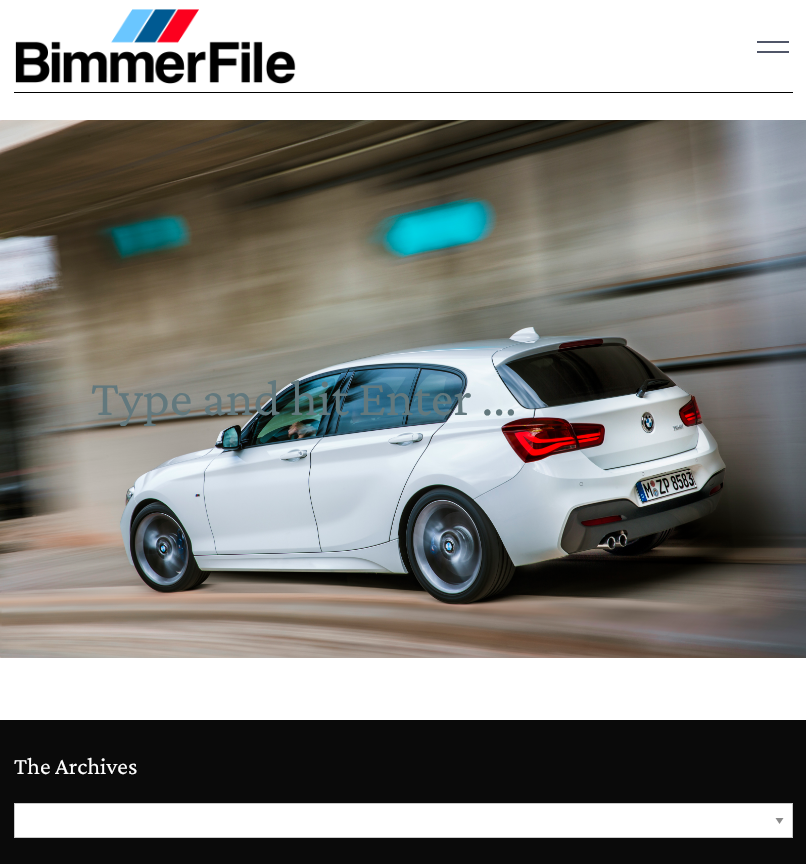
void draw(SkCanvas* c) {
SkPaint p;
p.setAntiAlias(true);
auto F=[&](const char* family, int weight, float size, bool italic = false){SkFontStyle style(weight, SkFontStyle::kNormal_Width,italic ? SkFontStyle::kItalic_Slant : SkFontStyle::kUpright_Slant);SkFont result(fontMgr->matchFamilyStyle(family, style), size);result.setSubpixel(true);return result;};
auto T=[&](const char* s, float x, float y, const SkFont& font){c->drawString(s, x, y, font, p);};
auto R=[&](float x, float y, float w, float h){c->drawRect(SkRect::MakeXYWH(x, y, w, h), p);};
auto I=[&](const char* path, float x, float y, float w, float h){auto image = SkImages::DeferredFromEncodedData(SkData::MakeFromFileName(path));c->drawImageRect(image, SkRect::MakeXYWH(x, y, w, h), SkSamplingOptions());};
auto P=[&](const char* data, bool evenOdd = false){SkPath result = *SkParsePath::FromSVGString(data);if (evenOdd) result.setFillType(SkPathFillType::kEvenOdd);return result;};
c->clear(0xffffffff);
I("1.png",15,9,281,75);
p.setColor(0xff505668);
R(757,41,32,2);
R(757,51,32,2);
p.setColor(0xff000000);
R(14,92,779,1);
I("2.png",0,120,806,538);
c->save();
c->clipRect(SkRect::MakeXYWH(91,368,624,58));
auto f1 = F("Crimson Pro",400,51.5);
p.setColor(0xff62787d);
T("Type and hit Enter ...",91,415,f1);
c->restore();
p.setColor(0xff0a0a0a);
R(0,720,806,144);
auto f2 = F("Crimson Pro",400,24);
p.setColor(0xffffffff);
T("The Archives",14,774,f2);
R(15,804,777,33);
p.setColor(0xff8a8a8a);
c->drawPath(P("M775.5 818h8l-4 6z"),p);
p.setStroke(true);
p.setStrokeWidth(1);
p.setColor(0xffcacaca);
c->drawRect(SkRect::MakeXYWH(14.5,803.5,778,34),p);
}
